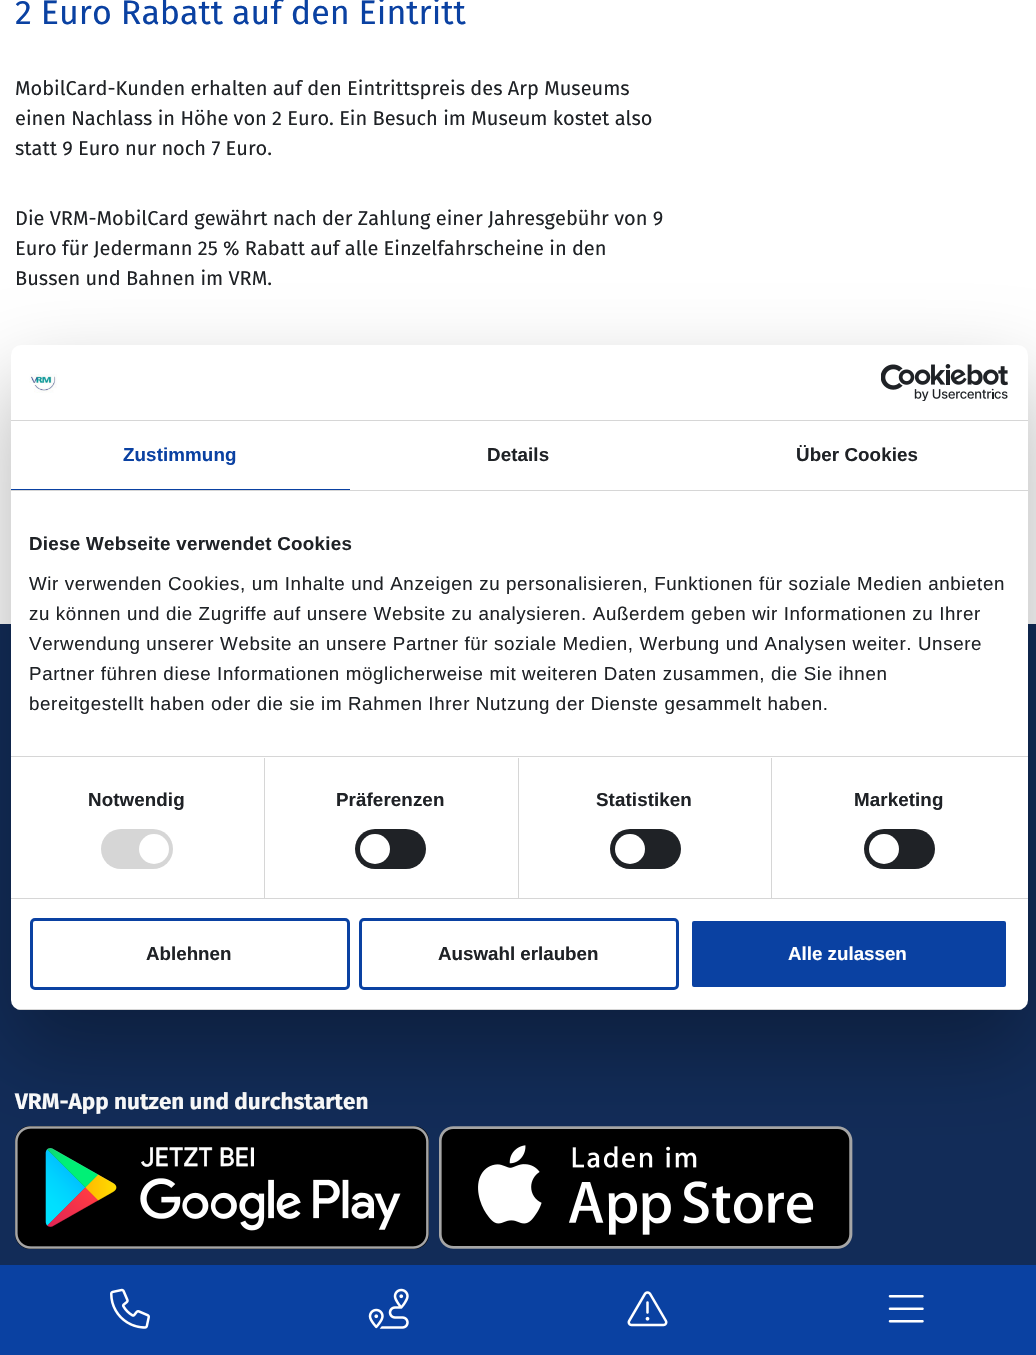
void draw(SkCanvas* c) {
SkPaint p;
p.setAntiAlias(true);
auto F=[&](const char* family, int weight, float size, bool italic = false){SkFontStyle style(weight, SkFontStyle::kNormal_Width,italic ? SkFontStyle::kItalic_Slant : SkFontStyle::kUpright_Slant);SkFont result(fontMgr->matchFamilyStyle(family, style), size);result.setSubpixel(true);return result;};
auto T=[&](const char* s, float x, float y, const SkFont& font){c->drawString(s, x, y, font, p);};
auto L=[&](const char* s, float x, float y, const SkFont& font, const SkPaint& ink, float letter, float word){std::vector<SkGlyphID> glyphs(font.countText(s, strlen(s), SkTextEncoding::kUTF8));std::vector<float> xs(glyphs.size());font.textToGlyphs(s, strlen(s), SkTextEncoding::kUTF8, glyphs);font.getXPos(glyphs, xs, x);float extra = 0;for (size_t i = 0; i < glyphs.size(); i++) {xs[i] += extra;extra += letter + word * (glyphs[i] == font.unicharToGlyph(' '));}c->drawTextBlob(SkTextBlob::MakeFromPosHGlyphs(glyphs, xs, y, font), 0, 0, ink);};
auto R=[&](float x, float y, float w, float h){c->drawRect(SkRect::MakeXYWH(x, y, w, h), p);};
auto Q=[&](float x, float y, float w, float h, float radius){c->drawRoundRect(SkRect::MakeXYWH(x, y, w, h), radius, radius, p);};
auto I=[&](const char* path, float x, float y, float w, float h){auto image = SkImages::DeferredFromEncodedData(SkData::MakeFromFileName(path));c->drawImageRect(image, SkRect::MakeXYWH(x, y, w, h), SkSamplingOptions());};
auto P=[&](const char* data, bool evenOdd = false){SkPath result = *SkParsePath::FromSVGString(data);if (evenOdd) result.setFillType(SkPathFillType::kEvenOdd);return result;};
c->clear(0xffffffff);
auto f1 = F("Fira Sans",400,34);
p.setColor(0xff0a41a2);
T("2 Euro Rabatt auf den Eintritt",15,24,f1);
auto f2 = F("Fira Sans",400,20);
p.setColor(0xff1f2226);
T("MobilCard-Kunden erhalten auf den Eintrittspreis des Arp Museums",15,95,f2);
T("einen Nachlass in Höhe von 2 Euro. Ein Besuch im Museum kostet also",15,125,f2);
T("statt 9 Euro nur noch 7 Euro.",15,155,f2);
T("Die VRM-MobilCard gewährt nach der Zahlung einer Jahresgebühr von 9",15,225,f2);
T("Euro für Jedermann 25 % Rabatt auf alle Einzelfahrscheine in den",15,255,f2);
T("Bussen und Bahnen im VRM.",15,285,f2);
p.setColor(0xff122c58);
R(0,624,1036,641);
auto f3 = F("Fira Sans",700,22.5);
p.setColor(0xffffffff);
T("VRM-App nutzen und durchstarten",15,1109,f3);
I("1.png",15,1126,414,123);
I("2.png",439,1126,414,123);
p.setColor(0xff0a41a2);
R(0,1265,1036,90);
I("3.png",110,1288,40,41);
I("4.png",368,1288,41,41);
I("5.png",627,1291,41,36);
I("6.png",888,1295,36,28);
p.setColor(0x4d000000);
p.setMaskFilter(SkMaskFilter::MakeBlur(kNormal_SkBlurStyle, 42.5));
c->drawRoundRect(SkRect::MakeXYWH(11,385,1017,665),10,10,p);
p.setMaskFilter(nullptr);
p.setColor(0xffffffff);
Q(11,345,1017,665,10);
p.setColor(0xffd6d6d6);
R(11,420,1017,1);
I("7.png",29,374,28,19);
I("8.png",881,364,127,37);
R(11,490,1017,1);
p.setColor(0xff0a41a2);
R(11,489,339,1);
auto f4 = F("Liberation Sans",700,18.75);
L("Zustimmung",123,461,f4,p,.1,0);
p.setColor(0xff1f2226);
L("Details",487,461,f4,p,.1,0);
L("Über Cookies",796,461,f4,p,.1,0);
p.setColor(0xffd6d6d6);
R(11,756,1017,1);
p.setColor(0xff1f2226);
L("Diese Webseite verwendet Cookies",29,550,f4,p,.3,0);
auto f5 = F("Liberation Sans",400,18.75);
L("Wir verwenden Cookies, um Inhalte und Anzeigen zu personalisieren, Funktionen für soziale Medien anbieten",29,590,f5,p,.62,0);
L("zu können und die Zugriffe auf unsere Website zu analysieren. Außerdem geben wir Informationen zu Ihrer",29,620,f5,p,.62,0);
L("Verwendung unserer Website an unsere Partner für soziale Medien, Werbung und Analysen weiter. Unsere",29,650,f5,p,.62,0);
L("Partner führen diese Informationen möglicherweise mit weiteren Daten zusammen, die Sie ihnen",29,680,f5,p,.62,0);
L("bereitgestellt haben oder die sie im Rahmen Ihrer Nutzung der Dienste gesammelt haben.",29,710,f5,p,.62,0);
p.setColor(0xffd6d6d6);
R(11,898,1017,1);
R(264,758,1,140);
p.setColor(0xff1f2226);
L("Notwendig",88,806,f4,p,.1,0);
p.setColor(0xffd6d6d6);
Q(101,829,72,40,20);
p.setColor(0xffffffff);
c->drawCircle(154,849,15,p);
p.setColor(0xffd6d6d6);
R(518,758,1,140);
p.setColor(0xff1f2226);
L("Präferenzen",336,806,f4,p,.1,0);
Q(355,829,71,40,20);
p.setColor(0xffffffff);
c->drawCircle(375,849,15,p);
p.setColor(0xffd6d6d6);
R(771,758,1,140);
p.setColor(0xff1f2226);
L("Statistiken",596,806,f4,p,.1,0);
Q(610,829,71,40,20);
p.setColor(0xffffffff);
c->drawCircle(630,849,15,p);
p.setColor(0xff1f2226);
L("Marketing",854,806,f4,p,.1,0);
Q(864,829,71,40,20);
p.setColor(0xffffffff);
c->drawCircle(884,849,15,p);
c->save();
c->clipPath(P("M21 345h997c5.5 0 10 4.5 10 10v645c0 5.5-4.5 10-10 10h-997c-5.5 0-10-4.5-10-10v-645c0-5.5 4.5-10 10-10z"),true);
p.setColor(0xffd6d6d6);
R(11,1009,1017,1);
c->restore();
p.setStroke(true);
p.setStrokeWidth(3);
p.setColor(0xff0a41a2);
c->drawRoundRect(SkRect::MakeXYWH(31.5,919.5,317,69),3.5,3.5,p);
p.setStroke(false);
p.setColor(0xff1f2226);
T("Ablehnen",146,960,f4);
p.setStroke(true);
p.setColor(0xff0a41a2);
c->drawRoundRect(SkRect::MakeXYWH(360.5,919.5,317,69),3.5,3.5,p);
p.setStroke(false);
p.setColor(0xff1f2226);
T("Auswahl erlauben",438,960,f4);
p.setColor(0xff0a41a2);
c->drawRoundRect(SkRect::MakeXYWH(690.5,919.5,317,69),3.5,3.5,p);
p.setStroke(true);
p.setColor(0xffffffff);
c->drawRoundRect(SkRect::MakeXYWH(690.5,919.5,317,69),3.5,3.5,p);
p.setStroke(false);
T("Alle zulassen",788,960,f4);
}
